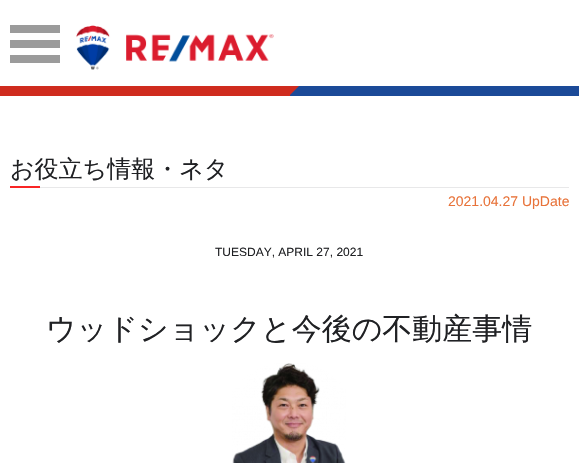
void draw(SkCanvas* c) {
SkPaint p;
p.setAntiAlias(true);
auto F=[&](const char* family, int weight, float size, bool italic = false){SkFontStyle style(weight, SkFontStyle::kNormal_Width,italic ? SkFontStyle::kItalic_Slant : SkFontStyle::kUpright_Slant);SkFont result(fontMgr->matchFamilyStyle(family, style), size);result.setSubpixel(true);return result;};
auto T=[&](const char* s, float x, float y, const SkFont& font){c->drawString(s, x, y, font, p);};
auto R=[&](float x, float y, float w, float h){c->drawRect(SkRect::MakeXYWH(x, y, w, h), p);};
auto I=[&](const char* path, float x, float y, float w, float h){auto image = SkImages::DeferredFromEncodedData(SkData::MakeFromFileName(path));c->drawImageRect(image, SkRect::MakeXYWH(x, y, w, h), SkSamplingOptions());};
auto P=[&](const char* data, bool evenOdd = false){SkPath result = *SkParsePath::FromSVGString(data);if (evenOdd) result.setFillType(SkPathFillType::kEvenOdd);return result;};
c->clear(0xffffffff);
I("1.png",10,25,50,38);
I("2.png",76,25,198,45);
p.setColor(0xffcf2b1e);
R(0,86,290,10);
p.setColor(0xff1b4a98);
R(290,86,289,10);
p.setColor(0xffcf2b1e);
c->drawPath(P("M290 86h9l-9 9z"),p);
p.setColor(0xffe8e8e9);
R(40,187,529,1);
auto f1 = F("WenQuanYi Zen Hei",500,24);
p.setColor(0xff202124);
T("お役立ち情報・ネタ",10,177,f1);
p.setColor(0xfff92525);
R(10,186,30,2);
auto f2 = F("Liberation Sans",400,14);
p.setColor(0xffe8733a);
T("2021.04.27 UpDate",448,206,f2);
auto f3 = F("Liberation Sans",400,12);
p.setColor(0xff202124);
T("TUESDAY, APRIL 27, 2021",215,256,f3);
auto f4 = F("WenQuanYi Zen Hei",500,30);
T("ウッドショックと今後の不動産事情",46,339,f4);
I("3.png",232,363,114,100);
}
